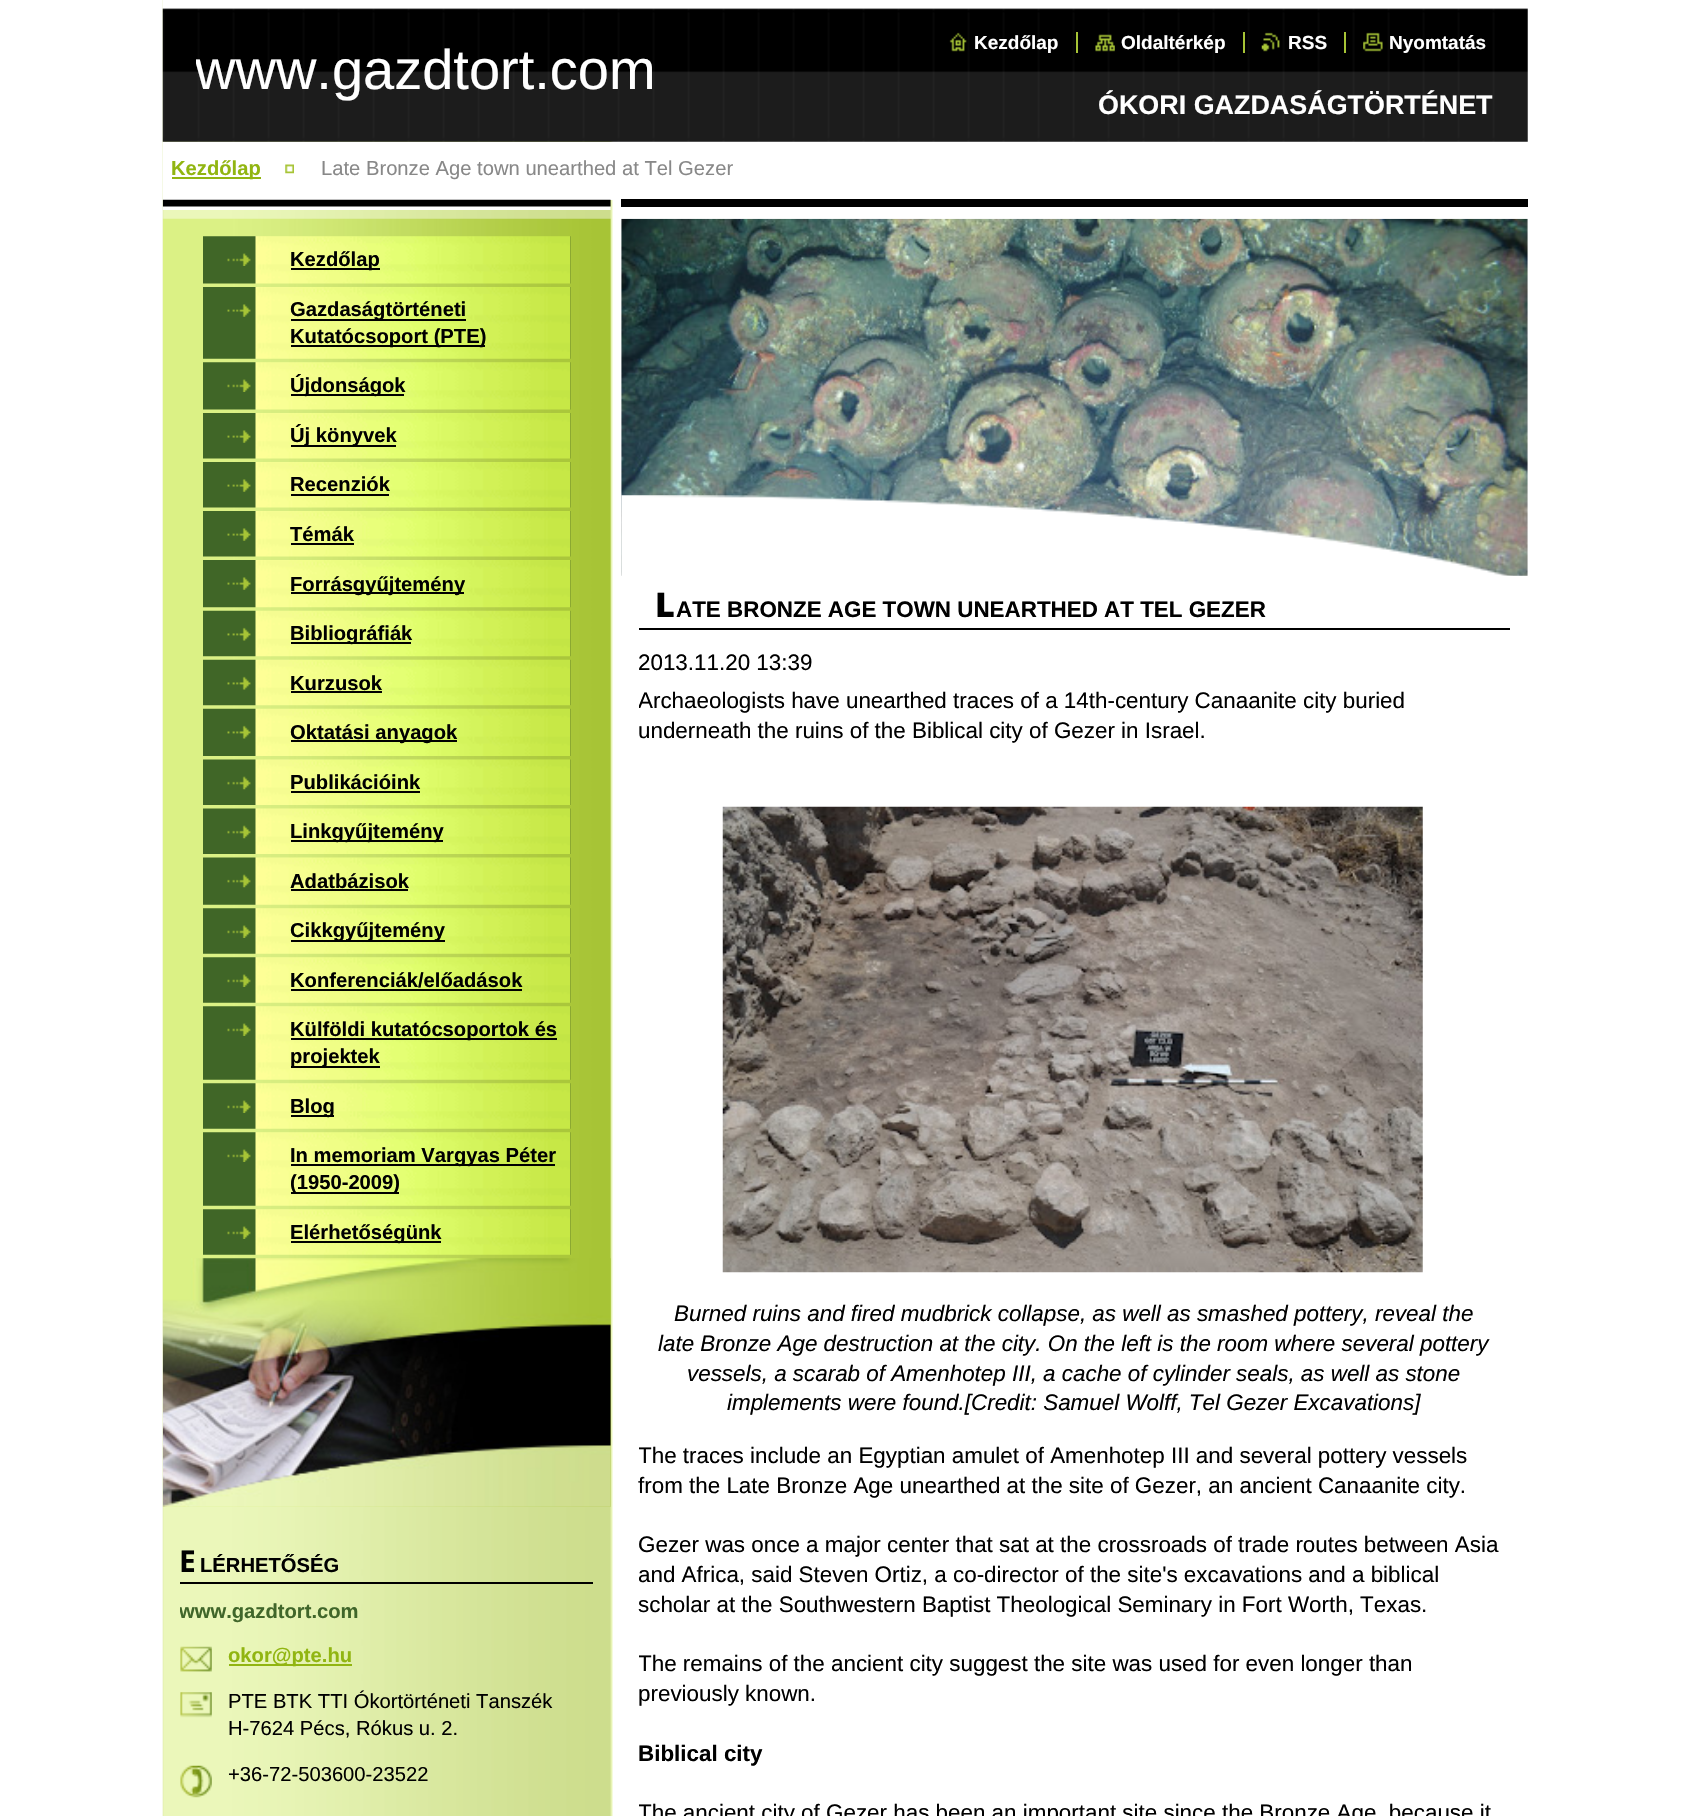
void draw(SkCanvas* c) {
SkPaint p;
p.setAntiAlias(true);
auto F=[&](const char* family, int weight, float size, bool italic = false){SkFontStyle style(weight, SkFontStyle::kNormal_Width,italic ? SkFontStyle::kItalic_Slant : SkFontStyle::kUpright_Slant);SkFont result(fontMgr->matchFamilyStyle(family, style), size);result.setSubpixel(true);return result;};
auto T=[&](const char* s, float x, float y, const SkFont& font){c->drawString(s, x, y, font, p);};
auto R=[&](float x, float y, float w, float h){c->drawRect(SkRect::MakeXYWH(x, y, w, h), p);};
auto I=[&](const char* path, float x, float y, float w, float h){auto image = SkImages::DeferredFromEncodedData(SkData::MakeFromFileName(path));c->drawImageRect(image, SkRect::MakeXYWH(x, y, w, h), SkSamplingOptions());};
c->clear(0xffffffff);
I("1.png",162,0,451,1816);
I("2.png",162,0,1366,142);
I("3.png",949,32,18,20);
auto f1 = F("Liberation Sans",700,19);
p.setColor(0xffffffff);
T("Kezdőlap",974,49,f1);
I("4.png",1095,34,20,18);
T("Oldaltérkép",1121,49,f1);
p.setColor(0xffa7c436);
R(1076,32,2,21);
I("5.png",1261,32,19,20);
p.setColor(0xffffffff);
T("RSS",1288,49,f1);
p.setColor(0xffa7c436);
R(1243,32,2,21);
I("6.png",1363,32,20,20);
p.setColor(0xffffffff);
T("Nyomtatás",1389,49,f1);
p.setColor(0xffa7c436);
R(1344,32,2,21);
c->save();
c->clipRect(SkRect::MakeXYWH(196,33,726,88));
auto f2 = F("Liberation Sans",400,56);
p.setColor(0xffffffff);
T("www.gazdtort.com",195,89,f2);
c->restore();
auto f3 = F("Liberation Sans",700,26.9);
T("ÓKORI GAZDASÁGTÖRTÉNET",1098,114,f3);
R(163,142,450,58);
p.setColor(0xff91b511);
R(172,177,89,2);
auto f4 = F("Liberation Sans",700,20.2);
T("Kezdőlap",171,175,f4);
I("7.png",285,164,9,10);
auto f5 = F("Liberation Sans",400,20.2);
p.setColor(0xff888888);
T("Late Bronze Age town unearthed at Tel Gezer",321,175,f5);
I("8.png",162,199,449,11);
I("9.png",162,218,449,1289);
I("10.png",203,236,368,48);
I("11.png",227,253,24,13);
p.setColor(0xff000000);
R(291,268,89,2);
T("Kezdőlap",290,266,f4);
I("12.png",203,287,368,72);
I("13.png",227,304,24,13);
R(291,319,175,2);
T("Gazdaságtörténeti",290,316,f4);
R(291,345,194,2);
T("Kutatócsoport (PTE)",290,343,f4);
I("14.png",203,362,368,48);
I("11.png",227,379,24,13);
R(291,394,113,2);
T("Újdonságok",290,392,f4);
I("15.png",203,413,368,46);
I("13.png",227,430,24,13);
R(291,445,105,2);
T("Új könyvek",290,442,f4);
I("16.png",203,462,368,46);
I("13.png",227,479,24,13);
T("Recenziók",290,491,f4);
R(291,494,98,2);
I("17.png",203,511,368,46);
I("13.png",227,528,24,13);
T("Témák",290,541,f4);
R(291,543,63,2);
I("18.png",203,560,368,48);
I("13.png",227,577,24,13);
R(291,592,173,2);
T("Forrásgyűjtemény",290,591,f4);
I("19.png",203,610,368,47);
I("20.png",227,627,24,14);
R(291,642,120,2);
T("Bibliográfiák",290,640,f4);
I("21.png",203,659,368,47);
I("20.png",227,676,24,14);
T("Kurzusok",290,690,f4);
R(291,691,91,2);
I("22.png",203,708,368,48);
I("20.png",227,725,24,14);
R(291,740,166,2);
T("Oktatási anyagok",290,739,f4);
I("23.png",203,759,368,46);
I("24.png",227,776,24,14);
T("Publikációink",290,789,f4);
R(291,791,129,2);
I("25.png",203,808,368,46);
I("24.png",227,825,24,14);
R(291,840,152,2);
T("Linkgyűjtemény",290,838,f4);
I("26.png",203,857,368,48);
I("24.png",227,874,24,14);
T("Adatbázisok",290,888,f4);
R(291,889,117,2);
I("27.png",203,908,368,46);
I("11.png",227,925,24,13);
R(291,940,154,2);
T("Cikkgyűjtemény",290,937,f4);
I("28.png",203,957,368,46);
I("11.png",227,974,24,13);
T("Konferenciák/előadások",290,987,f4);
R(291,989,231,2);
I("29.png",203,1006,368,74);
I("11.png",227,1023,24,13);
R(291,1038,266,2);
T("Külföldi kutatócsoportok és",290,1036,f4);
R(291,1066,89,2);
T("projektek",290,1063,f4);
I("28.png",203,1083,368,46);
I("11.png",227,1100,24,13);
R(291,1115,43,2);
T("Blog",290,1113,f4);
I("30.png",203,1132,368,74);
I("11.png",227,1149,24,13);
R(291,1164,264,2);
T("In memoriam Vargyas Péter",290,1162,f4);
R(291,1192,108,2);
T("(1950-2009)",290,1189,f4);
I("31.png",203,1209,368,46);
I("11.png",227,1226,24,13);
R(291,1241,150,2);
T("Elérhetőségünk",290,1239,f4);
I("32.png",162,1258,449,249);
R(180,1582,413,2);
auto f6 = F("Noto Sans",700,30);
T("E",179,1572,f6);
T("LÉRHETŐSÉG",200,1572,f4);
c->save();
c->clipRect(SkRect::MakeXYWH(180,1591,413,208));
p.setColor(0xff40662a);
T("www.gazdtort.com",179,1618,f4);
c->restore();
I("33.png",180,1646,32,26);
p.setColor(0xff91b511);
R(229,1664,123,2);
T("okor@pte.hu",228,1662,f4);
I("34.png",180,1692,32,26);
p.setColor(0xff000000);
T("PTE BTK TTI Ókortörténeti Tanszék",228,1708,f5);
T("H-7624 Pécs, Rókus u. 2.",228,1735,f5);
I("35.png",180,1765,32,33);
T("+36-72-503600-23522",228,1781,f5);
R(621,199,907,8);
I("36.png",621,218,907,358);
I("37.png",621,495,892,81);
R(639,628,871,2);
auto f7 = F("Noto Sans",900,34);
T("L",655,617,f7);
auto f8 = F("Liberation Sans",700,22.4);
T("ATE BRONZE AGE TOWN UNEARTHED AT TEL GEZER",676,617,f8);
auto f9 = F("Liberation Sans",400,22.4);
T("2013.11.20 13:39",638,670,f9);
c->save();
c->clipRect(SkRect::MakeXYWH(639,648,871,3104));
T("Archaeologists have unearthed traces of a 14th-century Canaanite city buried",638,708,f9);
c->restore();
T("underneath the ruins of the Biblical city of Gezer in Israel.",638,738,f9);
I("38.png",722,806,701,467);
auto f10 = F("Liberation Sans",400,22.4,true);
T("Burned ruins and fired mudbrick collapse, as well as smashed pottery, reveal the",674,1321,f10);
T("late Bronze Age destruction at the city. On the left is the room where several pottery",658,1351,f10);
T("vessels, a scarab of Amenhotep III, a cache of cylinder seals, as well as stone",687,1381,f10);
T("implements were found.[Credit: Samuel Wolff, Tel Gezer Excavations]",727,1410,f10);
c->save();
c->clipRect(SkRect::MakeXYWH(639,648,871,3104));
T("The traces include an Egyptian amulet of Amenhotep III and several pottery vessels",638,1463,f9);
c->restore();
T("from the Late Bronze Age unearthed at the site of Gezer, an ancient Canaanite city.",638,1493,f9);
T("Gezer was once a major center that sat at the crossroads of trade routes between Asia",638,1552,f9);
T("and Africa, said Steven Ortiz, a co-director of the site's excavations and a biblical",638,1582,f9);
T("scholar at the Southwestern Baptist Theological Seminary in Fort Worth, Texas.",638,1612,f9);
c->save();
c->clipRect(SkRect::MakeXYWH(639,648,871,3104));
T("The remains of the ancient city suggest the site was used for even longer than",638,1671,f9);
c->restore();
T("previously known.",638,1701,f9);
T("Biblical city",638,1761,f8);
c->save();
c->clipRect(SkRect::MakeXYWH(639,648,871,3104));
T("The ancient city of Gezer has been an important site since the Bronze Age, because it",638,1820,f9);
c->restore();
}
